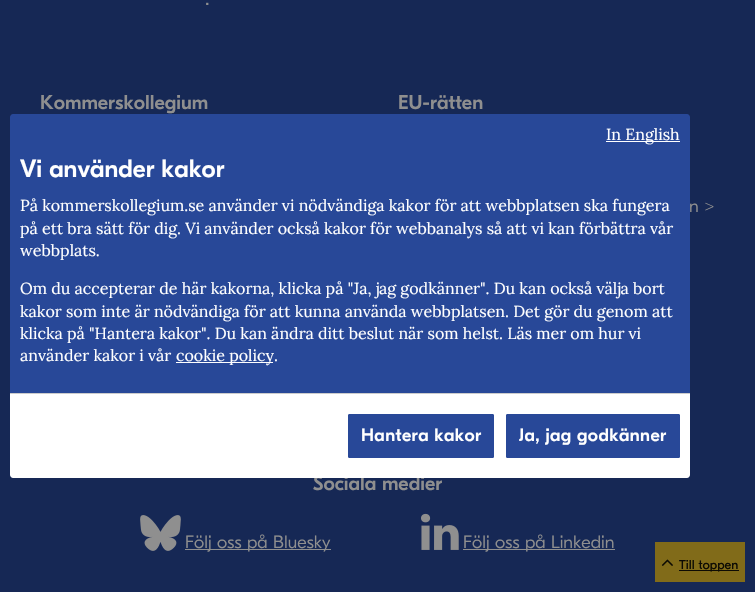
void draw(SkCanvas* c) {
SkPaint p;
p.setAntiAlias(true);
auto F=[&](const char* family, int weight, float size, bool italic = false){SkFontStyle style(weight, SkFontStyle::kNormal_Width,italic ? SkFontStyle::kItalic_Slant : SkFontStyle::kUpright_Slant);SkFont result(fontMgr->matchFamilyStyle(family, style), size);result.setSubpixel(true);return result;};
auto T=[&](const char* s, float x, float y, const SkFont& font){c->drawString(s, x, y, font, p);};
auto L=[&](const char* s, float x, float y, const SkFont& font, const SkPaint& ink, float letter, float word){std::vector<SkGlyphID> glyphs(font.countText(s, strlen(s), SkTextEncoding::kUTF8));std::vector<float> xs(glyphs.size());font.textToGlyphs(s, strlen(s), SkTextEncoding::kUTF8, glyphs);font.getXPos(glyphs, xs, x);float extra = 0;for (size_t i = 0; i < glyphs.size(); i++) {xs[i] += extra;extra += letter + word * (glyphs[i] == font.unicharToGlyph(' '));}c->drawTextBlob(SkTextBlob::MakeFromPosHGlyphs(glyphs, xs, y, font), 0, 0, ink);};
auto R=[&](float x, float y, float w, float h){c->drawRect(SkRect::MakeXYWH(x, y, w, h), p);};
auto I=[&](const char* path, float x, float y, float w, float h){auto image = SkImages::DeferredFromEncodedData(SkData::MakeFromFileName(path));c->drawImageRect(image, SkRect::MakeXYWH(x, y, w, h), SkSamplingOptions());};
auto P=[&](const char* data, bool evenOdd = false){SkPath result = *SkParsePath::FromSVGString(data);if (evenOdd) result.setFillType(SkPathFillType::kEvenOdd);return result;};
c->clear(0xff162855);
auto f1 = F("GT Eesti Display",300,21);
p.setColor(0xff8f8f8f);
T(".",205,5,f1);
auto f2 = F("GT Eesti Display",500,20);
T("Kommerskollegium",40,109,f2);
T("EU-rätten",398,109,f2);
auto f3 = F("GT Eesti Display",300,18);
T("n >",689,212,f3);
T("Sociala medier",313,490,f2);
I("1.png",140,515,41,36);
R(185,549,146,1);
T("Följ oss på Bluesky",185,548,f3);
I("2.png",421,513,38,37);
R(463,549,152,1);
T("Följ oss på Linkedin",463,548,f3);
p.setColor(0xff284898);
c->drawPath(P("M13 114h674c1.5 0 3 1.5 3 3v276h-680v-276c0-1.5 1.5-3 3-3z"),p);
p.setColor(0xffffffff);
R(606,141,74,1);
auto f4 = F("Lora",400,16);
T("In English",606,140,f4);
auto f5 = F("GT Eesti Display",500,25);
T("Vi använder kakor",20,177,f5);
T("På kommerskollegium.se använder vi nödvändiga kakor för att webbplatsen ska fungera",20,211,f4);
T("på ett bra sätt för dig. Vi använder också kakor för webbanalys så att vi kan förbättra vår",20,234,f4);
T("webbplats.",20,256,f4);
T("Om du accepterar de här kakorna, klicka på \"Ja, jag godkänner\". Du kan också välja bort",20,294,f4);
T("kakor som inte är nödvändiga för att kunna använda webbplatsen. Det gör du genom att",20,317,f4);
T("klicka på \"Hantera kakor\". Du kan ändra ditt beslut när som helst. Läs mer om hur vi",20,339,f4);
T("använder kakor i vår",20,361,f4);
R(176,362,97,1);
T("cookie policy.",176,361,f4);
c->drawPath(P("M10 393h680v82c0 1.5-1.5 3-3 3h-674c-1.5 0-3-1.5-3-3z"),p);
p.setColor(0xffcccccc);
R(10,393,680,1);
p.setColor(0xff284898);
c->drawRoundRect(SkRect::MakeXYWH(348.5,414.5,145,43),.5,.5,p);
p.setStroke(true);
p.setStrokeWidth(1);
c->drawRoundRect(SkRect::MakeXYWH(348.5,414.5,145,43),.5,.5,p);
auto f6 = F("GT Eesti Display",500,18);
p.setStroke(false);
p.setColor(0xffffffff);
L("Hantera kakor",361,441,f6,p,.4,0);
p.setColor(0xff284898);
c->drawRoundRect(SkRect::MakeXYWH(506.5,414.5,173,43),.5,.5,p);
p.setStroke(true);
c->drawRoundRect(SkRect::MakeXYWH(506.5,414.5,173,43),.5,.5,p);
p.setStroke(false);
p.setColor(0xffffffff);
L("Ja, jag godkänner",519,441,f6,p,.4,0);
p.setColor(0xff816b19);
R(655,542,90,40);
I("3.png",661,559,12,7);
p.setColor(0xff0d0b03);
R(679,570,60,1);
auto f7 = F("GT Eesti Display",400,13);
T("Till toppen",679,569,f7);
}
